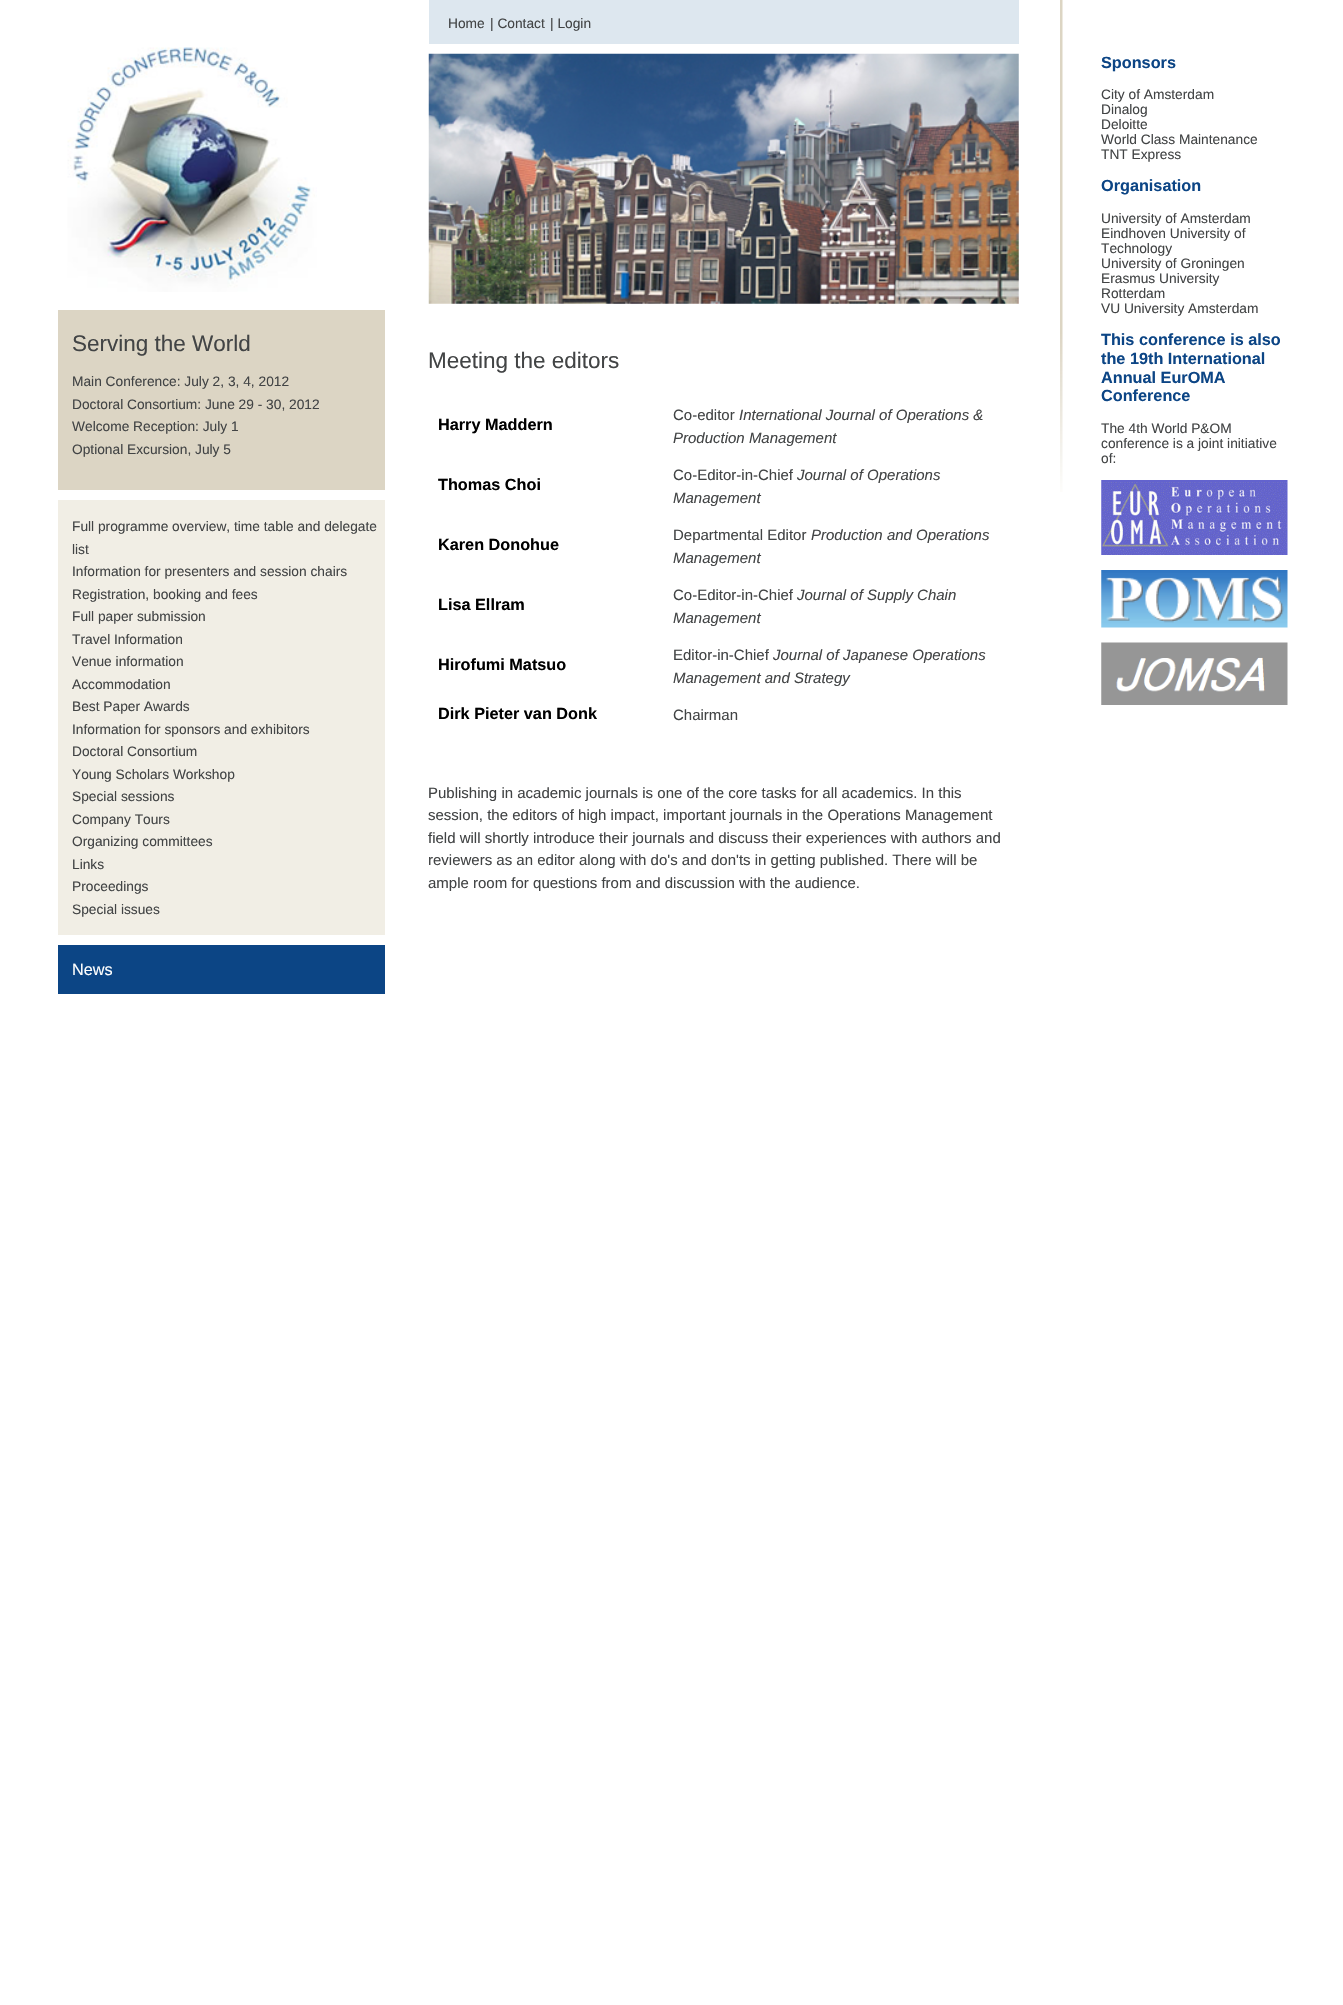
void draw(SkCanvas* c) {
SkPaint p;
p.setAntiAlias(true);
auto F=[&](const char* family, int weight, float size, bool italic = false){SkFontStyle style(weight, SkFontStyle::kNormal_Width,italic ? SkFontStyle::kItalic_Slant : SkFontStyle::kUpright_Slant);SkFont result(fontMgr->matchFamilyStyle(family, style), size);result.setSubpixel(true);return result;};
auto T=[&](const char* s, float x, float y, const SkFont& font){c->drawString(s, x, y, font, p);};
auto R=[&](float x, float y, float w, float h){c->drawRect(SkRect::MakeXYWH(x, y, w, h), p);};
auto I=[&](const char* path, float x, float y, float w, float h){auto image = SkImages::DeferredFromEncodedData(SkData::MakeFromFileName(path));c->drawImageRect(image, SkRect::MakeXYWH(x, y, w, h), SkSamplingOptions());};
c->clear(0xffffffff);
I("1.png",1060,0,3,492);
p.setColor(0xffdde7ef);
R(429,0,590,44);
auto f1 = F("Liberation Sans",400,13.75);
p.setColor(0xff424445);
T("Home",448,28,f1);
T("| Contact",490,28,f1);
T("| Login",550,28,f1);
I("2.png",428,53,591,251);
auto f2 = F("Liberation Sans",400,22.5);
T("Meeting the editors",428,368,f2);
auto f3 = F("Liberation Sans",700,16.25);
p.setColor(0xff000000);
T("Harry Maddern",438,430,f3);
auto f4 = F("Liberation Sans",400,15);
p.setColor(0xff424445);
T("Co-editor",673,420,f4);
auto f5 = F("Liberation Sans",400,15,true);
T("International Journal of Operations &",739,420,f5);
T("Production Management",673,443,f5);
p.setColor(0xff000000);
T("Thomas Choi",438,490,f3);
p.setColor(0xff424445);
T("Co-Editor-in-Chief",673,480,f4);
T("Journal of Operations",797,480,f5);
T("Management",673,503,f5);
p.setColor(0xff000000);
T("Karen Donohue",438,550,f3);
p.setColor(0xff424445);
T("Departmental Editor",673,540,f4);
T("Production and Operations",811,540,f5);
T("Management",673,563,f5);
p.setColor(0xff000000);
T("Lisa Ellram",438,610,f3);
p.setColor(0xff424445);
T("Co-Editor-in-Chief",673,600,f4);
T("Journal of Supply Chain",797,600,f5);
T("Management",673,623,f5);
p.setColor(0xff000000);
T("Hirofumi Matsuo",438,670,f3);
p.setColor(0xff424445);
T("Editor-in-Chief",673,660,f4);
T("Journal of Japanese Operations",773,660,f5);
T("Management and Strategy",673,683,f5);
p.setColor(0xff000000);
T("Dirk Pieter van Donk",438,719,f3);
p.setColor(0xff424445);
T("Chairman",673,720,f4);
T("Publishing in academic journals is one of the core tasks for all academics. In this",428,798,f4);
T("session, the editors of high impact, important journals in the Operations Management",428,820,f4);
T("field will shortly introduce their journals and discuss their experiences with authors and",428,843,f4);
T("reviewers as an editor along with do's and don'ts in getting published. There will be",428,865,f4);
T("ample room for questions from and discussion with the audience.",428,888,f4);
p.setColor(0xff0c4585);
T("Sponsors",1101,68,f3);
p.setColor(0xff424445);
T("City of Amsterdam",1101,99,f1);
T("Dinalog",1101,114,f1);
T("Deloitte",1101,129,f1);
T("World Class Maintenance",1101,144,f1);
T("TNT Express",1101,159,f1);
p.setColor(0xff0c4585);
T("Organisation",1101,191,f3);
p.setColor(0xff424445);
T("University of Amsterdam",1101,223,f1);
T("Eindhoven University of",1101,238,f1);
T("Technology",1101,253,f1);
T("University of Groningen",1101,268,f1);
T("Erasmus University",1101,283,f1);
T("Rotterdam",1101,298,f1);
T("VU University Amsterdam",1101,313,f1);
p.setColor(0xff0c4585);
T("This conference is also",1101,345,f3);
T("the 19th International",1101,364,f3);
T("Annual EurOMA",1101,383,f3);
T("Conference",1101,401,f3);
p.setColor(0xff424445);
T("The 4th World P&OM",1101,433,f1);
T("conference is a joint initiative",1101,448,f1);
T("of:",1101,463,f1);
I("3.png",1101,480,187,75);
I("4.png",1101,570,187,58);
I("5.png",1101,642,187,63);
I("6.png",67,47,250,245);
p.setColor(0xffdcd5c4);
R(58,310,327,180);
p.setColor(0xff424445);
T("Serving the World",72,351,f2);
T("Main Conference: July 2, 3, 4, 2012",72,386,f1);
T("Doctoral Consortium: June 29 - 30, 2012",72,409,f1);
T("Welcome Reception: July 1",72,431,f1);
T("Optional Excursion, July 5",72,454,f1);
p.setColor(0xfff1eee5);
R(58,500,327,435);
p.setColor(0xff424445);
T("Full programme overview, time table and delegate",72,531,f1);
T("list",72,554,f1);
T("Information for presenters and session chairs",72,576,f1);
T("Registration, booking and fees",72,599,f1);
T("Full paper submission",72,621,f1);
T("Travel Information",72,644,f1);
T("Venue information",72,666,f1);
T("Accommodation",72,689,f1);
T("Best Paper Awards",72,711,f1);
T("Information for sponsors and exhibitors",72,734,f1);
T("Doctoral Consortium",72,756,f1);
T("Young Scholars Workshop",72,779,f1);
T("Special sessions",72,801,f1);
T("Company Tours",72,824,f1);
T("Organizing committees",72,846,f1);
T("Links",72,869,f1);
T("Proceedings",72,891,f1);
T("Special issues",72,914,f1);
p.setColor(0xff0c4585);
R(58,945,327,49);
auto f6 = F("Liberation Sans",400,16.25);
p.setColor(0xffffffff);
T("News",72,975,f6);
}
